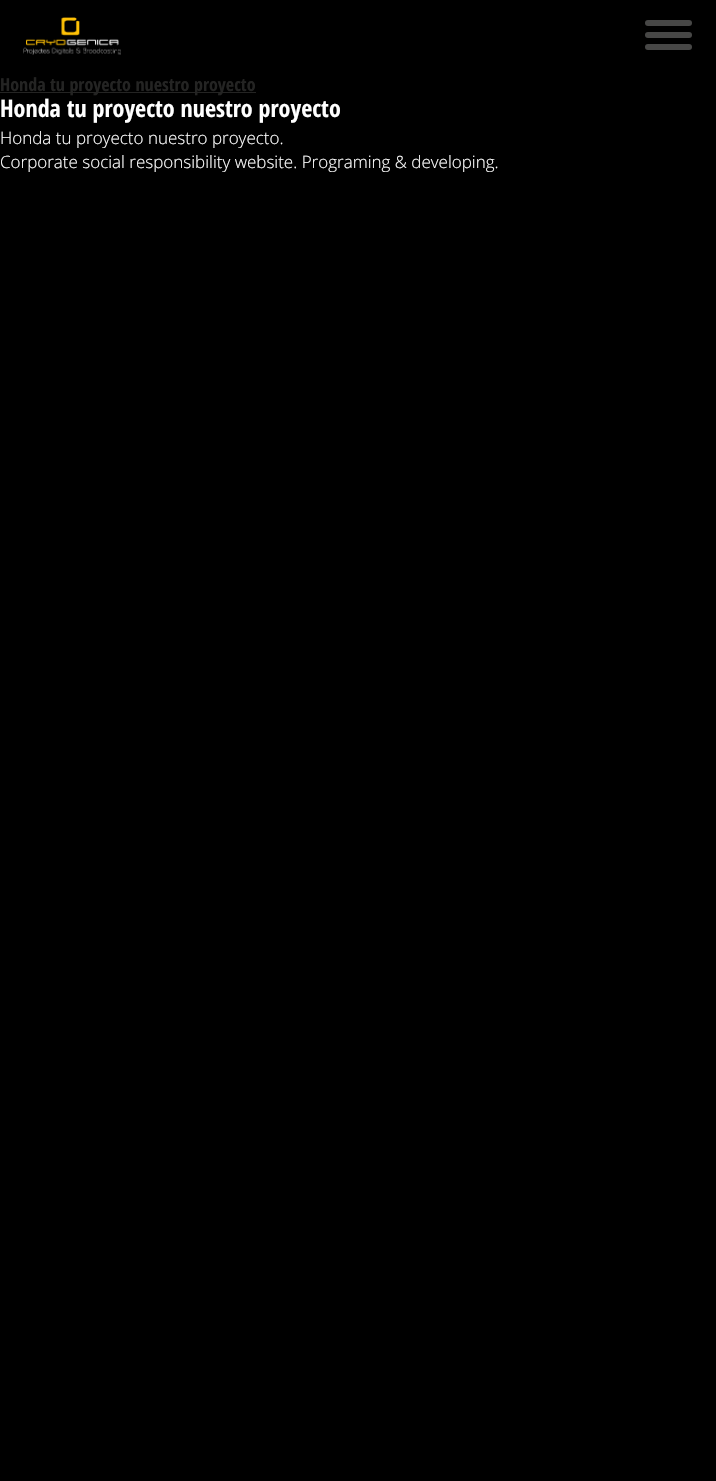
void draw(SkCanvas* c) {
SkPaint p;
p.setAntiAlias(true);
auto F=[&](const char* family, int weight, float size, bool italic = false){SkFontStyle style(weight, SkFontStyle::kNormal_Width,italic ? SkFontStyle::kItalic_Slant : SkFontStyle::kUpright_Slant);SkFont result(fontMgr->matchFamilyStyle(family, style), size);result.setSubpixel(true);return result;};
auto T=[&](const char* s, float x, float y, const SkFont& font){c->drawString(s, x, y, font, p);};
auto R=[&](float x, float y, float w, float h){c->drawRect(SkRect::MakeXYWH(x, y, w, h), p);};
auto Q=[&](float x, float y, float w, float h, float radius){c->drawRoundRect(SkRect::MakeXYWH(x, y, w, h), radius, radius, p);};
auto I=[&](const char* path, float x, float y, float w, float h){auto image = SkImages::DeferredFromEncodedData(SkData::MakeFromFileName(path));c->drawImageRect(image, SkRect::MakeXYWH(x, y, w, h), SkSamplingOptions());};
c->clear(0xff000000);
I("1.png",23,17,98,38);
p.setColor(0xff474746);
Q(645,32,47,6,3);
Q(645,20,47,6,3);
Q(645,44,47,6,3);
p.setColor(0xff242423);
R(0,92,256,1);
auto f1 = F("Open Sans Condensed",700,18);
T("Honda tu proyecto nuestro proyecto",0,91,f1);
auto f2 = F("Open Sans Condensed",700,24);
p.setColor(0xffffffff);
T("Honda tu proyecto nuestro proyecto",0,117,f2);
auto f3 = F("Open Sans",300,17);
T("Honda tu proyecto nuestro proyecto.",0,144,f3);
T("Corporate social responsibility website. Programing & developing.",0,168,f3);
}
